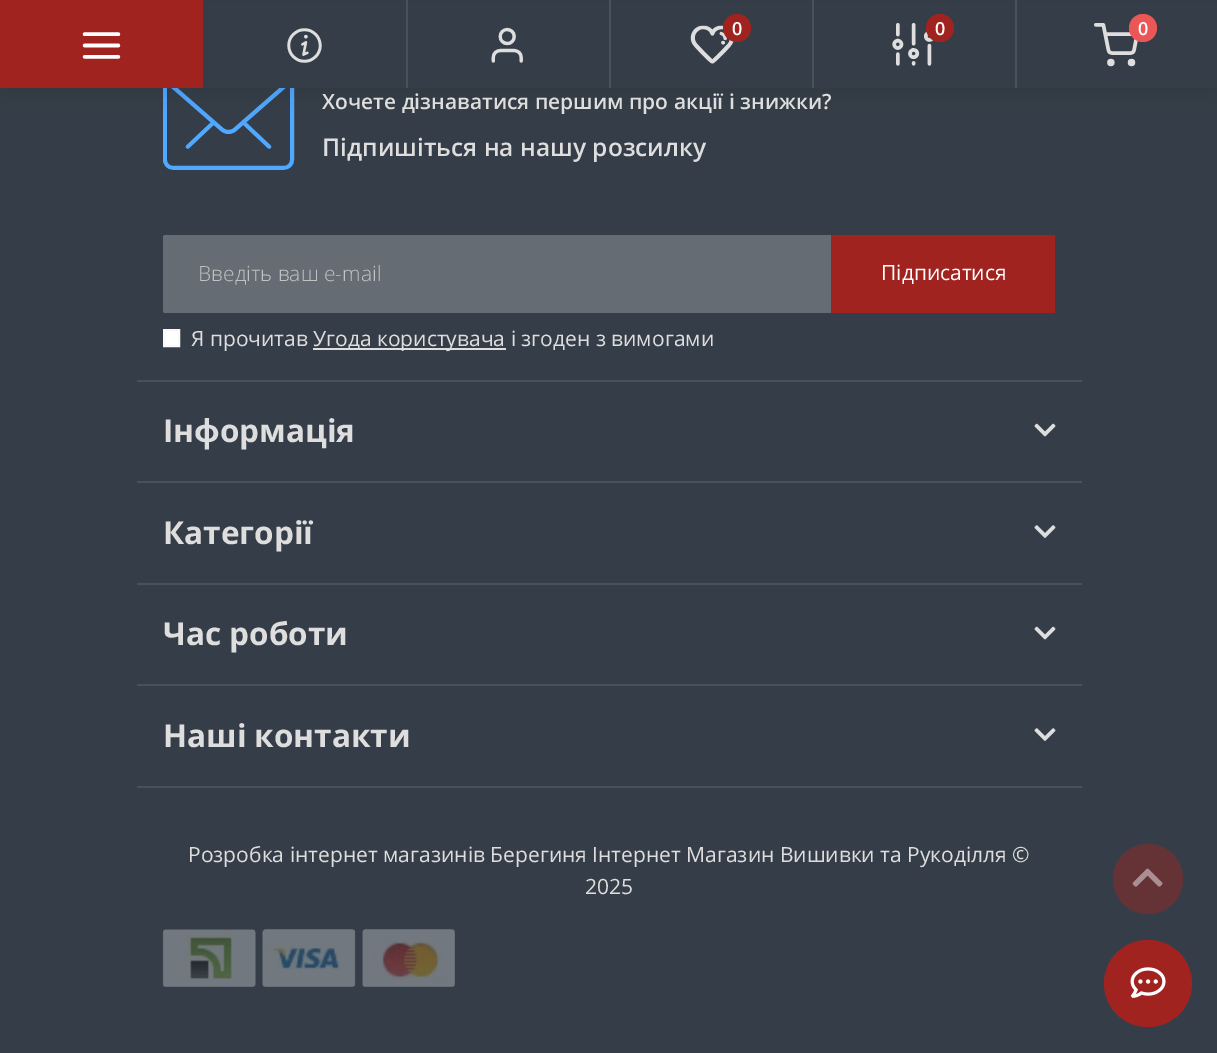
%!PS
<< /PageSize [1217 1053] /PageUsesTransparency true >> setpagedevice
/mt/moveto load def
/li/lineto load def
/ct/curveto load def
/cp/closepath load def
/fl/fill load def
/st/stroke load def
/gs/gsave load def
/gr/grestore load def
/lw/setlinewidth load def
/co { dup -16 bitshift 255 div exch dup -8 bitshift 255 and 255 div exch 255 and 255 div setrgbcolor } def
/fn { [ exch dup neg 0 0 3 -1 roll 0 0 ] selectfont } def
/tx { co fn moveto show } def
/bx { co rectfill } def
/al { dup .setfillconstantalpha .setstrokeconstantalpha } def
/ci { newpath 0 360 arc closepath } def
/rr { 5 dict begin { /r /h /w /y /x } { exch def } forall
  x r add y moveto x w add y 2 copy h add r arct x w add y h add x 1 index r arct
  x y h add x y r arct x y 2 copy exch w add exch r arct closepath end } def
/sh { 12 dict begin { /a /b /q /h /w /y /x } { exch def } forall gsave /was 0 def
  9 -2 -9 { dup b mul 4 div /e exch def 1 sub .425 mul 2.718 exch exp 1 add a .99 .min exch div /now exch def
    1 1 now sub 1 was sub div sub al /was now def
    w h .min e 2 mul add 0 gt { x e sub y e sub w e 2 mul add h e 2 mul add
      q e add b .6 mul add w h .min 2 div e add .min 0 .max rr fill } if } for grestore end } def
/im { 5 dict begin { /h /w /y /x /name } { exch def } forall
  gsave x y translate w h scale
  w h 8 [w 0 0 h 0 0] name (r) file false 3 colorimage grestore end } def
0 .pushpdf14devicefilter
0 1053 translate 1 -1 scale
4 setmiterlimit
0 0 1217 1053 16#353E48 bx
(media/7.raw) 163 88 132 82 im
16#000000 co
0 7 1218 88 0 13 .1 sh
203 2 1014 86 16#353E48 bx
0 0 203 88 16#A0231F bx
(media/1.raw) 82 32 39 27 im
(media/2.raw) 287 28 35 35 im
406 0 2 88 16#49515A bx
(media/3.raw) 491 27 32 36 im
609 0 2 88 16#49515A bx
(media/4.raw) 690 25 44 39 im
16#A0231F co
737 28 14 ci fl
812 0 2 88 16#49515A bx
(media/5.raw) 892 23 42 43 im
16#A0231F co
940 28 14 ci fl
1015 0 2 88 16#49515A bx
(media/6.raw) 1094 23 44 44 im
16#EB5757 co
1143 28 14 ci fl
16#656C73 co
165 235 mt 831 235 li 831 313 li 165 313 li 164 313 163 312 163 311 ct 163 237 li 163 236 164 235 165 235 ct cp fl
831 235 224 78 16#A0231F bx
16#FFFFFF co
164 330 mt 179 330 li 179 346 li 164 346 li cp gs fl gr
16#F9F9F9 co
2 lw
st
313 348 193 2 16#DEDEDE bx
137 380 945 2 16#49515A bx
137 481 945 2 16#49515A bx
(media/8.raw) 1034 423 22 14 im
137 583 945 2 16#49515A bx
(media/9.raw) 1034 525 22 13 im
137 684 945 2 16#49515A bx
(media/8.raw) 1034 626 22 14 im
137 786 945 2 16#49515A bx
(media/9.raw) 1034 728 22 13 im
(media/10.raw) 162 929 94 58 im
(media/11.raw) 262 929 94 58 im
(media/12.raw) 362 929 93 58 im
16#653236 co
1148 879 35 ci fl
(media/13.raw) 1132 868 31 19 im
16#A0231F co
1104 940 88 87 43.5 rr fl
(media/14.raw) 1130 967 36 31 im
(0) 732 35 /OpenSans-SemiBold 18 16#FFFFFF tx
(0) 935 35 /OpenSans-SemiBold 18 16#FFFFFF tx
(0) 1138 35 /OpenSans-SemiBold 18 16#FFFFFF tx
(Хочете дізнаватися першим про акції і знижки?) 322 109 /OpenSans-SemiBold 21 16#DEDEDE tx
(Підпишіться на нашу розсилку) 322 156 /OpenSans-SemiBold 24.5 16#DEDEDE tx
(Введіть ваш e-mail) 198 281 /OpenSans-Light 21 16#C2C2C2 tx
(Підписатися) 881 280 /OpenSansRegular-Regular 21 16#FFFFFF tx
(Я прочитав) 191 346 /OpenSansRegular-Regular 21 16#DEDEDE tx
(Угода користувача і згоден з вимогами) 313 346 /OpenSansRegular-Regular 21 16#DEDEDE tx
(Інформація) 163 442 /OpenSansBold-Bold 31.5 16#DEDEDE tx
(Категорії) 163 544 /OpenSansBold-Bold 31.5 16#DEDEDE tx
(Час роботи) 163 645 /OpenSansBold-Bold 31.5 16#DEDEDE tx
(Наші контакти) 163 747 /OpenSansBold-Bold 31.5 16#DEDEDE tx
(Розробка інтернет магазинів Берегиня Інтернет Магазин Вишивки та Рукоділля ©) 188 862 /OpenSansRegular-Regular 21 16#DEDEDE tx
(2025) 585 894 /OpenSansRegular-Regular 21 16#DEDEDE tx
.poppdf14devicefilter showpage
